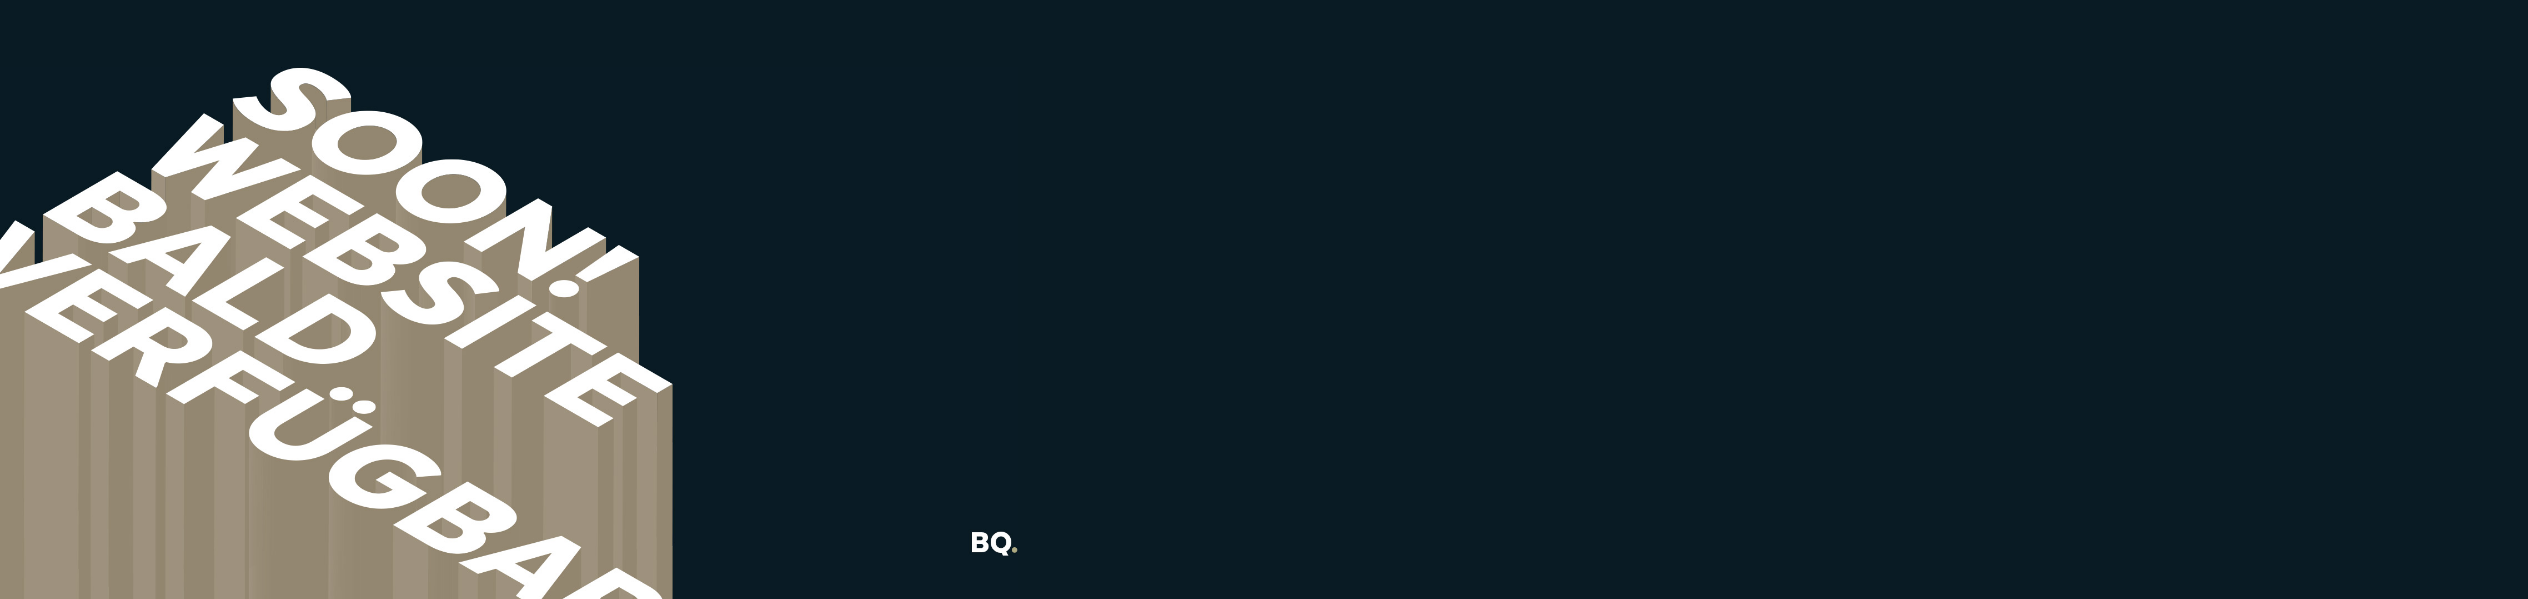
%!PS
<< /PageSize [2528 599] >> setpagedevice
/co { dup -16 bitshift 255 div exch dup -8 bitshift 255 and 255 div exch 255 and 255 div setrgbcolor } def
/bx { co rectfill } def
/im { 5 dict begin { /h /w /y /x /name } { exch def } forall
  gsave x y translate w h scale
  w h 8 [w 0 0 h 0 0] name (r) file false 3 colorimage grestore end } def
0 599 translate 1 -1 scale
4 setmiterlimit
0 0 2528 599 16#091B24 bx
(media/1.raw) 0 67 1018 532 im
showpage
